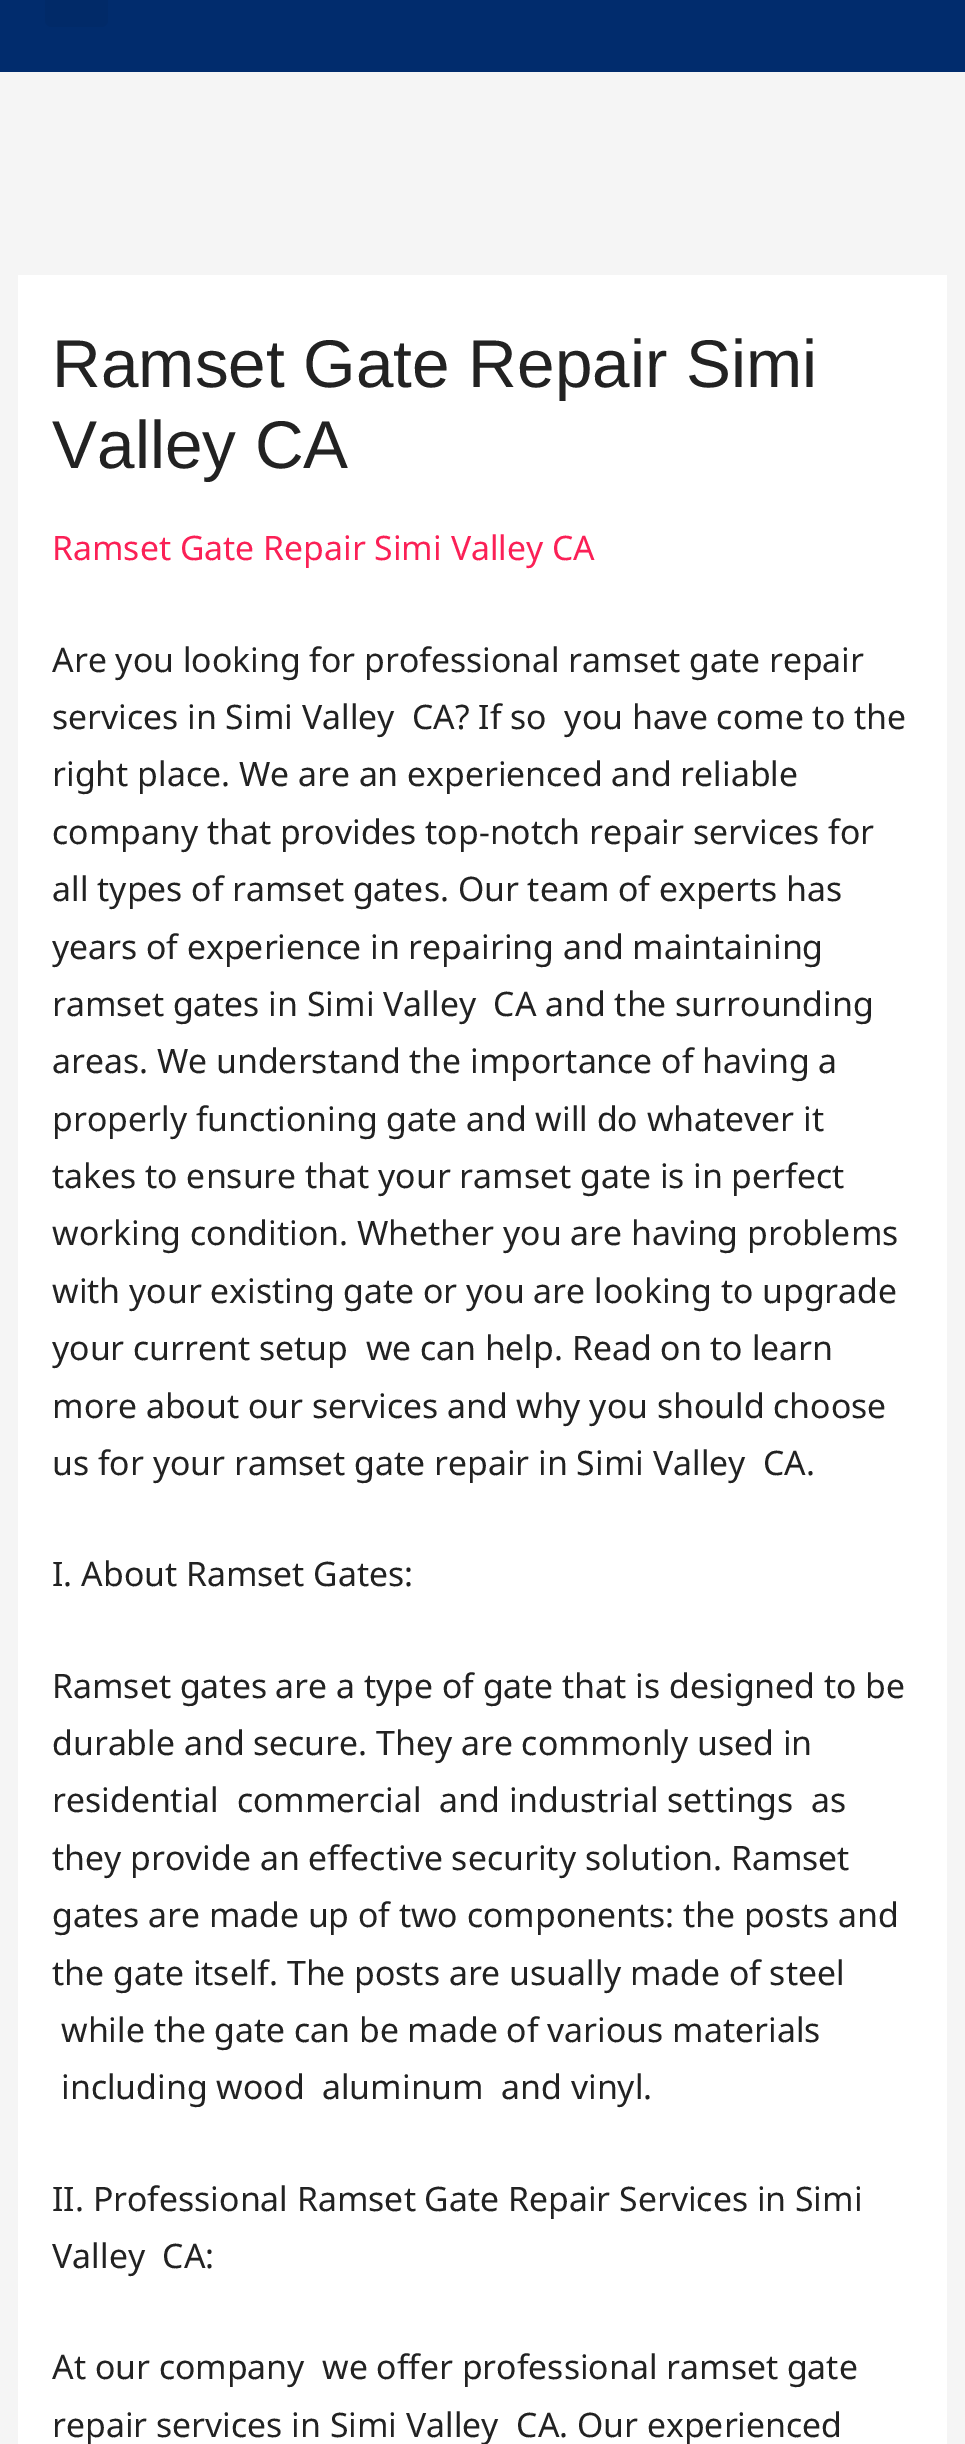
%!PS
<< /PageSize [965 2444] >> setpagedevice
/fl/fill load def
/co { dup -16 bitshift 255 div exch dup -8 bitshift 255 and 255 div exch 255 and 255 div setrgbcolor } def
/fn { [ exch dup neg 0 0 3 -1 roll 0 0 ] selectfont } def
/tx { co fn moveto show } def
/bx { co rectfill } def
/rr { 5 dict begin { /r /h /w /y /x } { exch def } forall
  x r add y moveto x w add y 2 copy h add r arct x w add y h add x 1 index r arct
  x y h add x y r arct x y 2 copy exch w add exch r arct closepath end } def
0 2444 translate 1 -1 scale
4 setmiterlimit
0 0 965 2444 16#F5F5F5 bx
0 0 965 72 16#012C6D bx
16#012A68 co
45 -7 63 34 7 rr fl
18 275 929 2169 16#FFFFFF bx
(Ramset Gate Repair Simi) 52 387 /LiberationSans-Regular 67.5 16#222222 tx
(Valley CA) 52 468 /LiberationSans-Regular 67.5 16#222222 tx
(Ramset Gate Repair Simi Valley CA) 52 560 /NotoSans-Regular 33.75 16#FB2056 tx
(Are you looking for professional ramset gate repair) 52 672 /NotoSans-Regular 33.75 16#222222 tx
(services in Simi Valley  CA? If so  you have come to the) 52 729 /NotoSans-Regular 33.75 16#222222 tx
(right place. We are an experienced and reliable) 52 786 /NotoSans-Regular 33.75 16#222222 tx
(company that provides top-notch repair services for) 52 844 /NotoSans-Regular 33.75 16#222222 tx
(all types of ramset gates. Our team of experts has) 52 901 /NotoSans-Regular 33.75 16#222222 tx
(years of experience in repairing and maintaining) 52 959 /NotoSans-Regular 33.75 16#222222 tx
(ramset gates in Simi Valley  CA and the surrounding) 52 1016 /NotoSans-Regular 33.75 16#222222 tx
(areas. We understand the importance of having a) 52 1073 /NotoSans-Regular 33.75 16#222222 tx
(properly functioning gate and will do whatever it) 52 1131 /NotoSans-Regular 33.75 16#222222 tx
(takes to ensure that your ramset gate is in perfect) 52 1188 /NotoSans-Regular 33.75 16#222222 tx
(working condition. Whether you are having problems) 52 1245 /NotoSans-Regular 33.75 16#222222 tx
(with your existing gate or you are looking to upgrade) 52 1303 /NotoSans-Regular 33.75 16#222222 tx
(your current setup  we can help. Read on to learn) 52 1360 /NotoSans-Regular 33.75 16#222222 tx
(more about our services and why you should choose) 52 1418 /NotoSans-Regular 33.75 16#222222 tx
(us for your ramset gate repair in Simi Valley  CA.) 52 1475 /NotoSans-Regular 33.75 16#222222 tx
(I. About Ramset Gates:) 52 1586 /NotoSans-Regular 33.75 16#222222 tx
(Ramset gates are a type of gate that is designed to be) 52 1698 /NotoSans-Regular 33.75 16#222222 tx
(durable and secure. They are commonly used in) 52 1755 /NotoSans-Regular 33.75 16#222222 tx
(residential  commercial  and industrial settings  as) 52 1812 /NotoSans-Regular 33.75 16#222222 tx
(they provide an effective security solution. Ramset) 52 1870 /NotoSans-Regular 33.75 16#222222 tx
(gates are made up of two components: the posts and) 52 1927 /NotoSans-Regular 33.75 16#222222 tx
(the gate itself. The posts are usually made of steel) 52 1985 /NotoSans-Regular 33.75 16#222222 tx
(while the gate can be made of various materials) 61 2042 /NotoSans-Regular 33.75 16#222222 tx
(including wood  aluminum  and vinyl.) 61 2099 /NotoSans-Regular 33.75 16#222222 tx
(II. Professional Ramset Gate Repair Services in Simi) 52 2211 /NotoSans-Regular 33.75 16#222222 tx
(Valley  CA:) 52 2268 /NotoSans-Regular 33.75 16#222222 tx
(At our company  we offer professional ramset gate) 52 2379 /NotoSans-Regular 33.75 16#222222 tx
(repair services in Simi Valley  CA. Our experienced) 52 2437 /NotoSans-Regular 33.75 16#222222 tx
showpage
